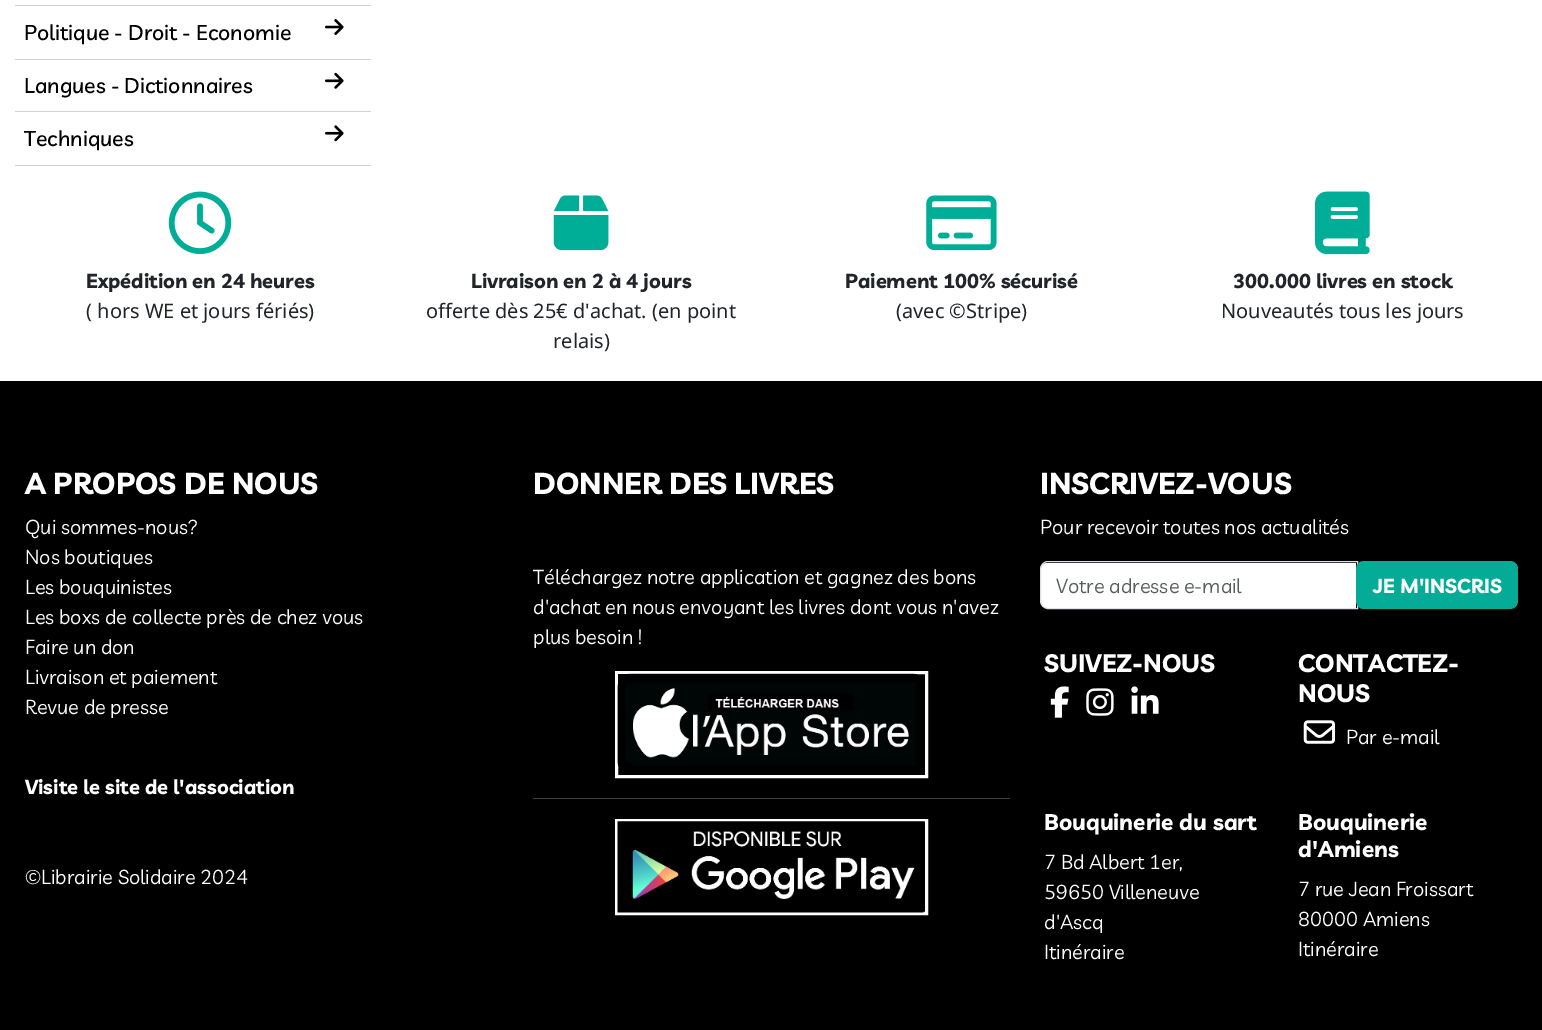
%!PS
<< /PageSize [1542 1030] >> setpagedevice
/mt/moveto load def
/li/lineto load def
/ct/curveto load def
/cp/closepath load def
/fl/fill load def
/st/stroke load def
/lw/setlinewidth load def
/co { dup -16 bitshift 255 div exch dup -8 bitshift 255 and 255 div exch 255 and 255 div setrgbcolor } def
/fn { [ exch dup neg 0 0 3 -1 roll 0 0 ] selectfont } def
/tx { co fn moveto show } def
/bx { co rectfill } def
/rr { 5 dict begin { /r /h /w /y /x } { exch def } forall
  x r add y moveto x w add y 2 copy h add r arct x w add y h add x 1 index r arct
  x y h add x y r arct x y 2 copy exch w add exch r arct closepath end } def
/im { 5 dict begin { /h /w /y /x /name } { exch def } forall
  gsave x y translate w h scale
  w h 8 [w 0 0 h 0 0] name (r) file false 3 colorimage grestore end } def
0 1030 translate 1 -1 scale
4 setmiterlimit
0 0 1542 1030 16#FFFFFF bx
15 5 356 1 16#D3D3D3 bx
15 59 356 1 16#D3D3D3 bx
(media/1.raw) 325 19 19 16 im
15 111 356 1 16#D3D3D3 bx
(media/2.raw) 325 72 19 17 im
15 165 356 1 16#D3D3D3 bx
(media/3.raw) 325 125 19 17 im
(media/4.raw) 168 191 64 64 im
(media/5.raw) 553 195 56 56 im
(media/6.raw) 926 195 71 56 im
(media/7.raw) 1315 191 55 64 im
0 381 1542 649 16#000000 bx
16#FFFFFF co
3 lw
616.5 672.5 310 104 rectstroke
(media/8.raw) 617 673 300 93 im
533 798 477 1 16#404040 bx
16#FFFFFF co
616.5 820.5 310 93 rectstroke
(media/9.raw) 617 821 308 92 im
1047 563 mt 1356 563 li 1356 608 li 1047 608 li 1043.5 608 1041 605.5 1041 602 ct 1041 569 li 1041 565.5 1043.5 563 1047 563 ct cp fl
16#DEE2E6 co
1 lw
1048 561.5 mt 1357.5 561.5 li 1357.5 608.5 li 1048 608.5 li 1044 608.5 1040.5 605 1040.5 601 ct 1040.5 569 li 1040.5 565 1044 561.5 1048 561.5 ct cp st
16#04AB96 co
1356 561 162 48 8 rr fl
(media/10.raw) 1050 686 19 32 im
(media/11.raw) 1086 688 28 28 im
(media/12.raw) 1131 686 28 28 im
(media/13.raw) 1303 720 32 24 im
(Politique - Droit - Economie) 24 40 /Livvic-Medium 21.25 16#000000 tx
(Langues - Dictionnaires) 24 93 /Livvic-Medium 21.25 16#000000 tx
(Techniques) 24 146 /Livvic-Medium 21.25 16#000000 tx
(Expédition en 24 heures) 86 288 /Livvic-Bold 20 16#212529 tx
(\( hors WE et jours fériés\)) 86 318 /NotoSans-Regular 20 16#212529 tx
(Livraison en 2 à 4 jours) 471 288 /Livvic-Bold 20 16#212529 tx
(offerte dès 25€ d'achat. \(en point) 426 318 /NotoSans-Regular 20 16#212529 tx
(relais\)) 553 348 /NotoSans-Regular 20 16#212529 tx
(Paiement 100% sécurisé) 845 288 /Livvic-Bold 20 16#212529 tx
(\(avec ©Stripe\)) 896 318 /NotoSans-Regular 20 16#212529 tx
(300.000 livres en stock) 1233 288 /Livvic-Bold 20 16#212529 tx
(Nouveautés tous les jours) 1221 318 /NotoSans-Regular 20 16#212529 tx
(A PROPOS DE NOUS) 25 494 /Livvic-Bold 30 16#FFFFFF tx
(Qui sommes-nous?) 25 534 /Livvic-Regular 20 16#FFFFFF tx
(Nos boutiques) 25 564 /Livvic-Regular 20 16#FFFFFF tx
(Les bouquinistes) 25 594 /Livvic-Regular 20 16#FFFFFF tx
(Les boxs de collecte près de chez vous) 25 624 /Livvic-Regular 20 16#FFFFFF tx
(Faire un don) 25 654 /Livvic-Regular 20 16#FFFFFF tx
(Livraison et paiement) 25 684 /Livvic-Regular 20 16#FFFFFF tx
(Revue de presse) 25 714 /Livvic-Regular 20 16#FFFFFF tx
(Visite le site de l'association) 25 794 /Livvic-Bold 20 16#FFFFFF tx
(©Librairie Solidaire 2024) 25 884 /Livvic-Regular 20 16#FFFFFF tx
(DONNER DES LIVRES) 533 494 /Livvic-Bold 30 16#FFFFFF tx
(Téléchargez notre application et gagnez des bons) 533 584 /Livvic-Regular 20 16#FFFFFF tx
(d'achat en nous envoyant les livres dont vous n'avez) 533 614 /Livvic-Regular 20 16#FFFFFF tx
(plus besoin !) 533 644 /Livvic-Regular 20 16#FFFFFF tx
(INSCRIVEZ-VOUS) 1040 494 /Livvic-Bold 30 16#FFFFFF tx
(Pour recevoir toutes nos actualités) 1040 534 /Livvic-Regular 20 16#FFFFFF tx
(Votre adresse e-mail) 1056 593 /Livvic-Regular 20 16#595C5F tx
(JE M'INSCRIS) 1373 593 /Livvic-Bold 20 16#FFFFFF tx
(SUIVEZ-NOUS) 1044 672 /Livvic-Bold 25 16#FFFFFF tx
(CONTACTEZ-) 1298 672 /Livvic-Bold 25 16#FFFFFF tx
(NOUS) 1298 702 /Livvic-Bold 25 16#FFFFFF tx
(Par e-mail) 1346 744 /Livvic-Regular 20 16#FFFFFF tx
(Bouquinerie du sart) 1044 830 /Livvic-Bold 22.5 16#FFFFFF tx
(7 Bd Albert 1er,) 1044 869 /Livvic-Regular 20 16#FFFFFF tx
(59650 Villeneuve) 1044 899 /Livvic-Regular 20 16#FFFFFF tx
(d'Ascq) 1044 929 /Livvic-Regular 20 16#FFFFFF tx
(Itinéraire) 1044 959 /Livvic-Regular 20 16#FFFFFF tx
(Bouquinerie) 1298 830 /Livvic-Bold 22.5 16#FFFFFF tx
(d'Amiens) 1298 857 /Livvic-Bold 22.5 16#FFFFFF tx
(7 rue Jean Froissart) 1298 896 /Livvic-Regular 20 16#FFFFFF tx
(80000 Amiens) 1298 926 /Livvic-Regular 20 16#FFFFFF tx
(Itinéraire) 1298 956 /Livvic-Regular 20 16#FFFFFF tx
showpage
